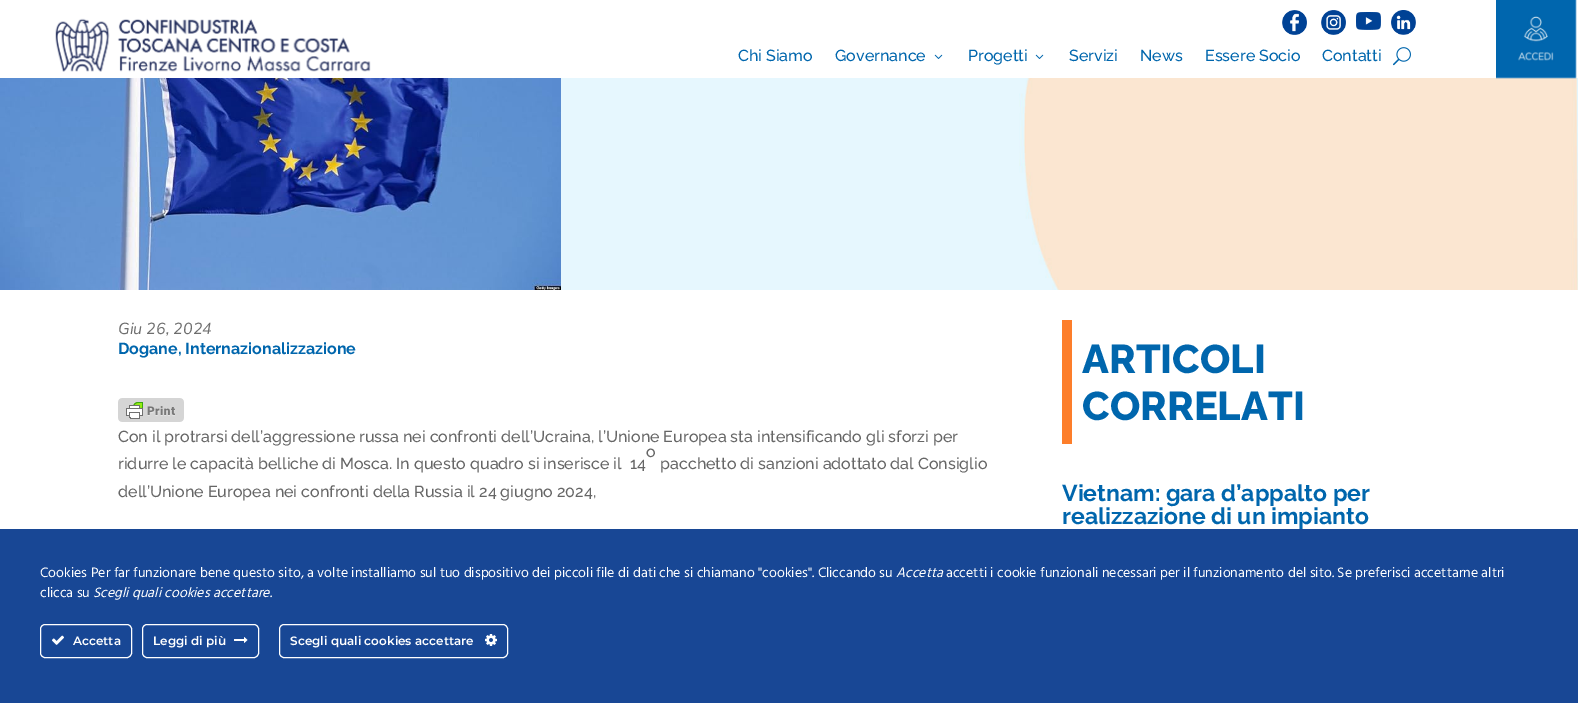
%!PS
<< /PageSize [1578 703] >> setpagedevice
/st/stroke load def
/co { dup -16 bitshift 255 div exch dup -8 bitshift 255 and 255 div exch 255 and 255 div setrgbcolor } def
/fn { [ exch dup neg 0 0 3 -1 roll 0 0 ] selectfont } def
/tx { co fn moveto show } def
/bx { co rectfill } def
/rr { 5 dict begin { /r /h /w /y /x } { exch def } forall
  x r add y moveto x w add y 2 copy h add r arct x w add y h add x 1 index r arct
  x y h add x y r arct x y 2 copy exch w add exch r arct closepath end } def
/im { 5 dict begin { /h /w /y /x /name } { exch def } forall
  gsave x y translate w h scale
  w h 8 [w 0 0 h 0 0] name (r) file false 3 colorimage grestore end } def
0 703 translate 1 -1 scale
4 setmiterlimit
0 0 1578 703 16#FFFFFF bx
(media/1.raw) 1282 10 25 25 im
(media/2.raw) 1321 10 25 25 im
(media/3.raw) 1356 12 25 18 im
(media/4.raw) 1391 10 25 25 im
(media/5.raw) 55 18 316 54 im
(media/6.raw) 934 54 9 5 im
(media/6.raw) 1035 54 9 5 im
(media/7.raw) 1393 47 18 19 im
(media/9.raw) 561 78 1017 212 im
(media/8.raw) 1496 0 81 79 im
(media/10.raw) 0 78 561 212 im
(media/11.raw) 118 398 66 24 im
1062 320 10 124 16#FD7E2A bx
0 529 1578 174 16#184795 bx
16#FFFFFF co
40.5 624.5 91 33 4.5 rr st
(media/12.raw) 52 635 12 10 im
142.5 624.5 116 33 4.5 rr st
(media/13.raw) 234 637 14 6 im
279.5 624.5 228 33 4.5 rr st
(media/14.raw) 485 634 12 12 im
(Chi Siamo) 738 61 /Raleway-Thin 16 16#0066AD tx
(Governance) 835 61 /Raleway-Thin 16 16#0066AD tx
(Progetti) 968 61 /Raleway-Thin 16 16#0066AD tx
(Servizi) 1069 61 /Raleway-Thin 16 16#0066AD tx
(News) 1140 61 /Raleway-Thin 16 16#0066AD tx
(Essere Socio) 1205 61 /Raleway-Thin 16 16#0066AD tx
(Contatti) 1322 61 /Raleway-Thin 16 16#0066AD tx
(Giu 26, 2024) 118 334 /NunitoSans-ExtraLightItalic 16 16#6E6E6E tx
(Dogane, Internazionalizzazione) 118 354 /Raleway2-Thin 16 16#0066AD tx
(Con il protrarsi dell’aggressione russa nei confronti dell’Ucraina, l’Unione Europea sta intensificando gli sforzi per) 118 442 /Raleway-Thin 16 16#666666 tx
(o) 646 457 /Raleway-Thin 16 16#666666 tx
(ridurre le capacità belliche di Mosca. In questo quadro si inserisce il  14) 118 469 /Raleway-Thin 16 16#666666 tx
(pacchetto di sanzioni adottato dal Consiglio) 660 469 /Raleway-Thin 16 16#666666 tx
(dell’Unione Europea nei confronti della Russia il 24 giugno 2024,) 118 497 /Raleway-Thin 16 16#666666 tx
(ARTICOLI) 1082 373 /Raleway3-Thin 40 16#0066AD tx
(CORRELATI) 1082 420 /Raleway3-Thin 40 16#0066AD tx
(Vietnam: gara d’appalto per) 1062 501 /Raleway2-Thin 23 16#0066AD tx
(realizzazione di un impianto) 1062 524 /Raleway2-Thin 23 16#0066AD tx
(Cookies Per far funzionare bene questo sito, a volte installiamo sul tuo dispositivo dei piccoli file di dati che si chiamano "cookies". Cliccando su) 40 577 /Hind-Regular 14 16#FFFFFF tx
(Accetta) 896 577 /Hind-Italic 14 16#FFFFFF tx
(accetti i cookie funzionali necessari per il funzionamento del sito. Se preferisci accettarne altri) 946 577 /Hind-Regular 14 16#FFFFFF tx
(clicca su) 40 597 /Hind-Regular 14 16#FFFFFF tx
(Scegli quali cookies accettare) 93 597 /Hind-Italic 14 16#FFFFFF tx
(.) 270 597 /Hind-Regular 14 16#FFFFFF tx
(Accetta) 73 645 /Montserrat-SemiBold 12 16#FFFFFF tx
(Leggi di più) 153 645 /Montserrat-SemiBold 12 16#FFFFFF tx
(Scegli quali cookies accettare) 290 645 /Montserrat-SemiBold 12 16#FFFFFF tx
showpage
